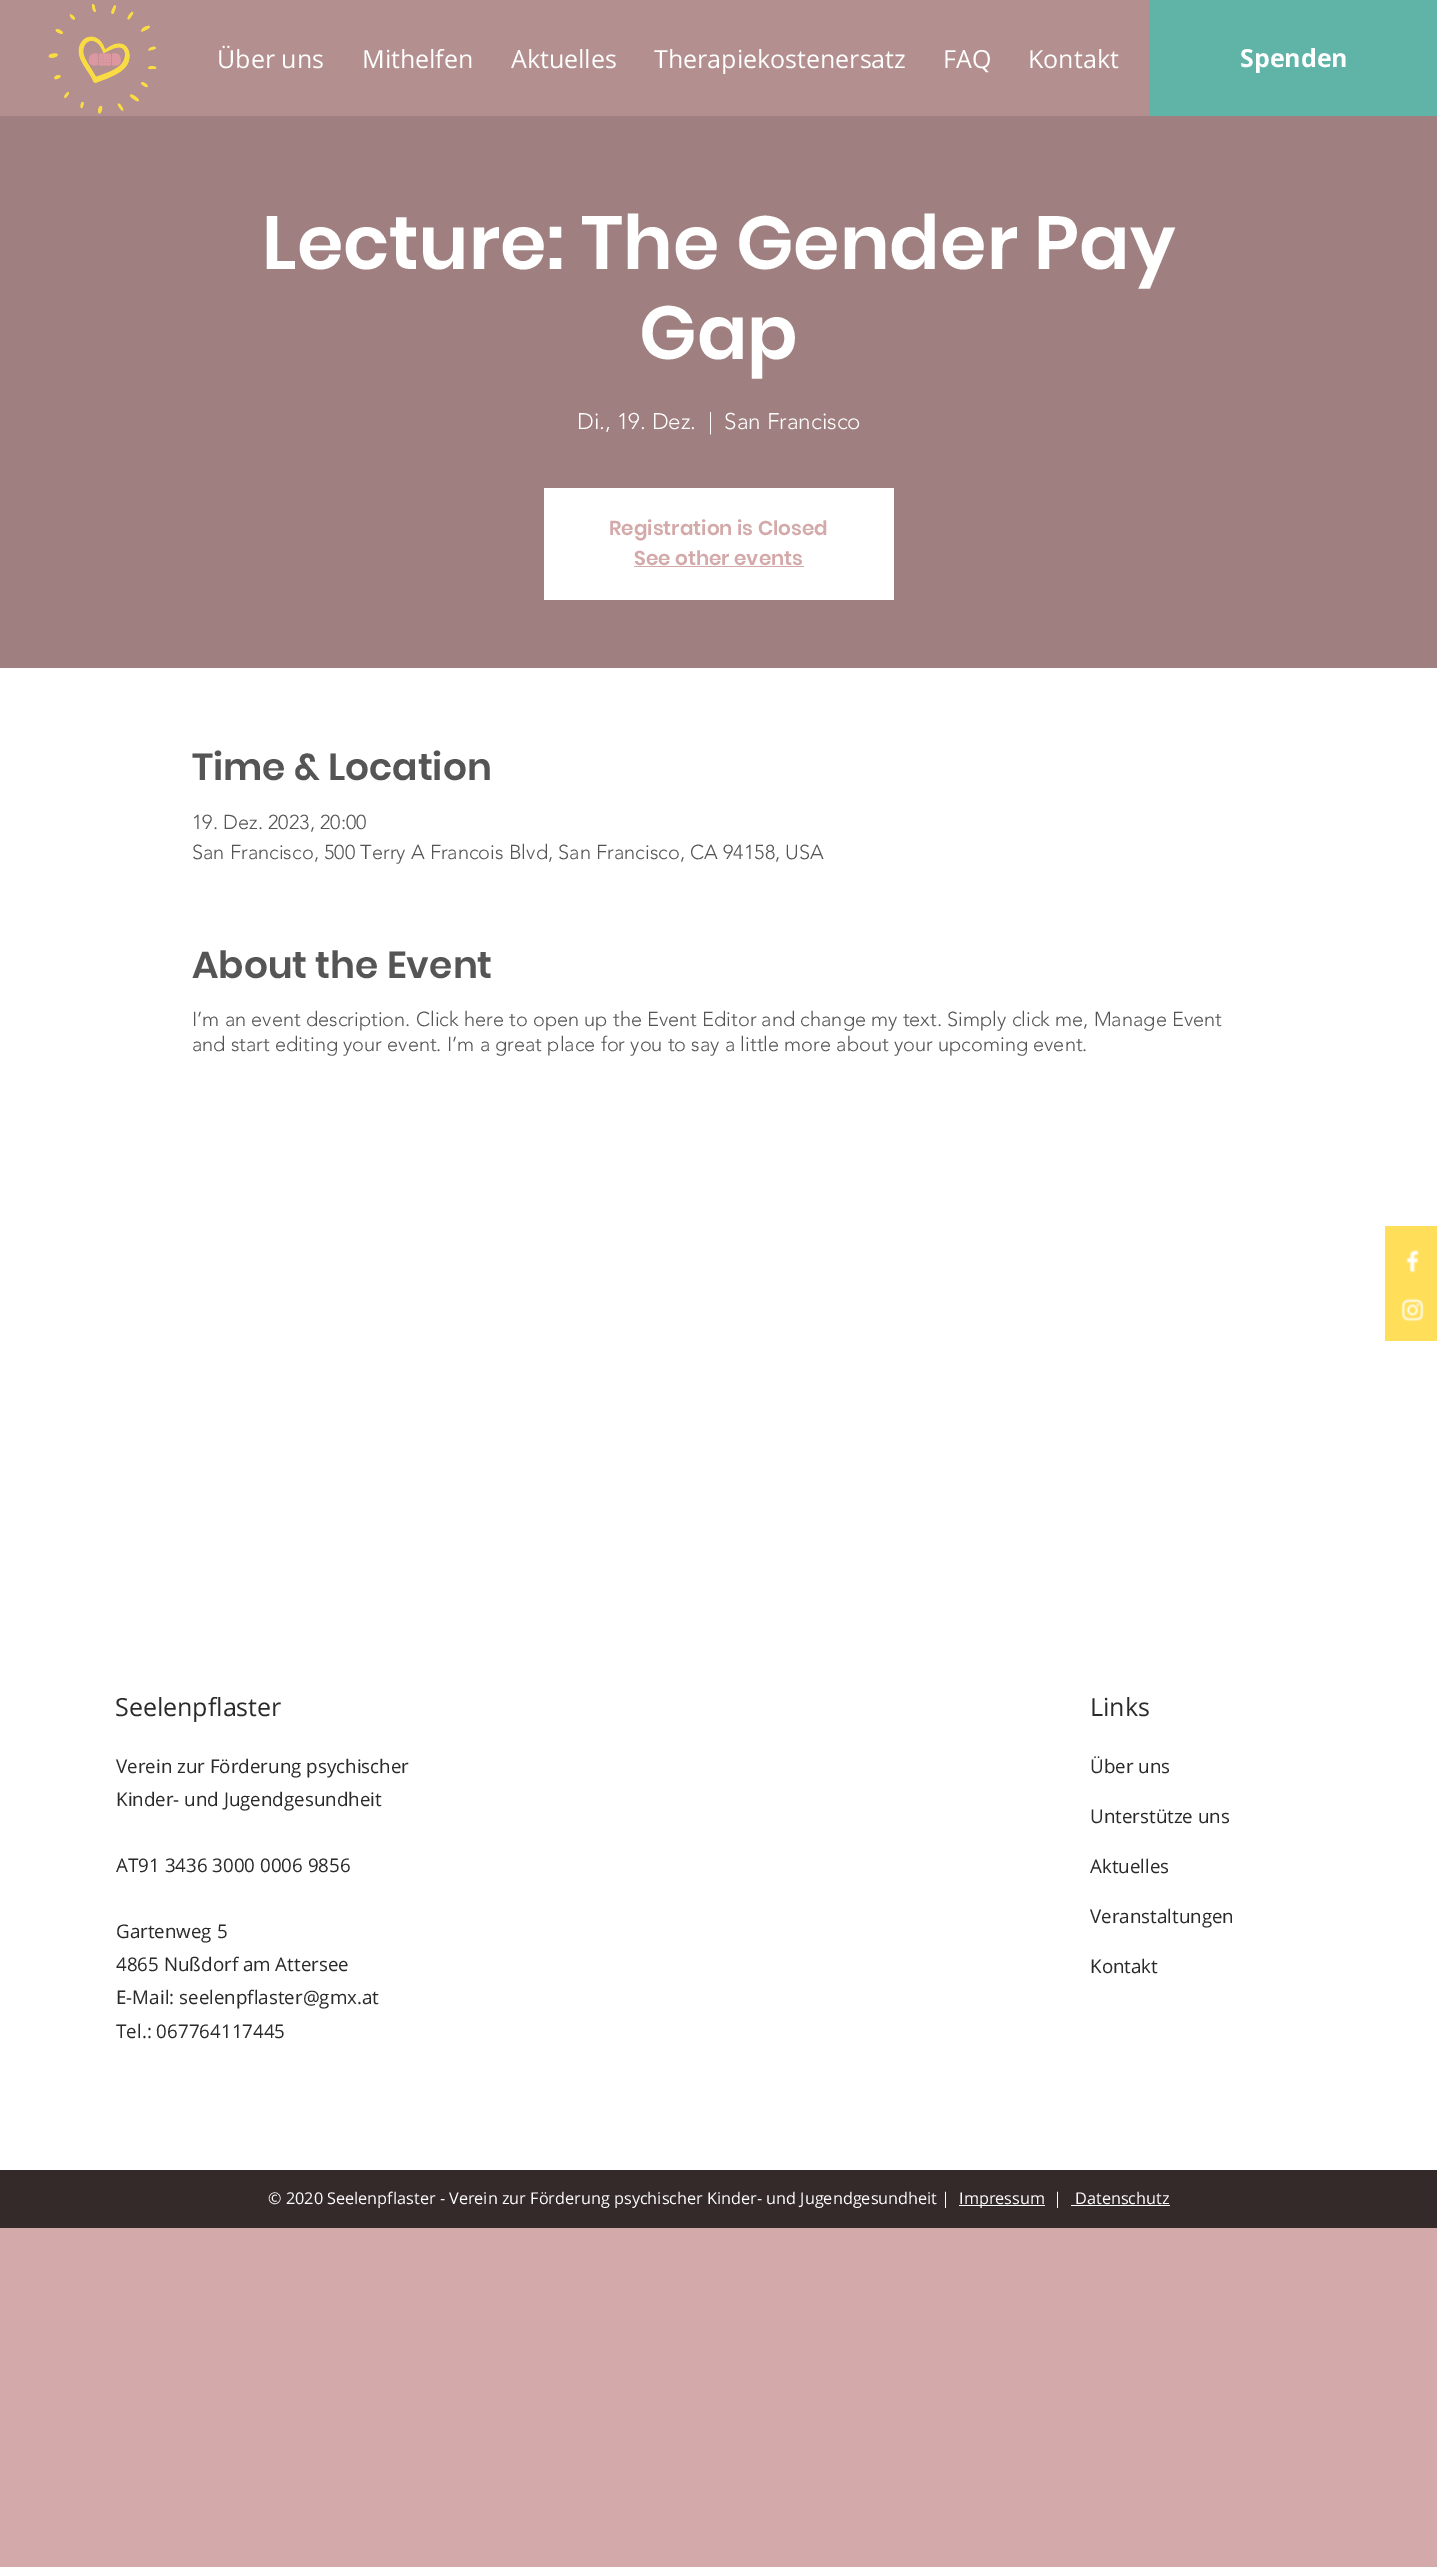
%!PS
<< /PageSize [1437 2567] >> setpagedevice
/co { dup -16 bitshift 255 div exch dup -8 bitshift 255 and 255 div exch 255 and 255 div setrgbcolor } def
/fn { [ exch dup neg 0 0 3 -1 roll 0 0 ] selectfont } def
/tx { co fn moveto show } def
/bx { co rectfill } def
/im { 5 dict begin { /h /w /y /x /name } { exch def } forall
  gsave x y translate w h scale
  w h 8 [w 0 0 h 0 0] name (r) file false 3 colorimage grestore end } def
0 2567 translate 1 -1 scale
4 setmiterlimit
0 0 1437 2567 16#D4A9A9 bx
0 0 1150 116 16#B38F8F bx
(media/1.raw) 48 4 109 110 im
(media/2.raw) 48 4 109 110 im
1150 0 287 116 16#60B3A7 bx
0 116 1437 552 16#9F7F7F bx
544 488 350 112 16#FFFFFF bx
634 566 170 1 16#D4A9A9 bx
0 668 1437 1502 16#FFFFFF bx
1385 1226 52 115 16#FFDE59 bx
(media/3.raw) 1405 1249 15 24 im
(media/4.raw) 1401 1298 23 24 im
0 2170 1437 58 16#352A2A bx
959 2205 86 1 16#FFFFFF bx
1071 2205 99 1 16#FFFFFF bx
(Über uns) 217 68 /OpenSans-Regular 25 16#FFFFFF tx
(Mithelfen) 362 68 /OpenSans-Regular 25 16#FFFFFF tx
(Aktuelles) 511 68 /OpenSans-Regular 25 16#FFFFFF tx
(Therapiekostenersatz) 654 68 /OpenSans-Regular 25 16#FFFFFF tx
(FAQ) 943 68 /OpenSans-Regular 25 16#FFFFFF tx
(Kontakt) 1028 68 /OpenSans-Regular 25 16#FFFFFF tx
(Spenden) 1240 67 /OpenSans-Bold 25 16#FFFFFF tx
(Lecture: The Gender Pay) 262 269 /Poppins-SemiBold 75 16#FFFFFF tx
(Gap) 639 359 /Poppins-SemiBold 75 16#FFFFFF tx
(Di., 19. Dez.) 577 429 /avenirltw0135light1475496-Light 22.5 16#FFFFFF tx
(|) 708 429 /avenirltw0135light1475496-Light 22.5 16#FFFFFF tx
(San Francisco) 724 429 /avenirltw0135light1475496-Light 22.5 16#FFFFFF tx
(Registration is Closed) 609 535 /Poppins-SemiBold 20 16#D4A9A9 tx
(See other events) 634 565 /Poppins-SemiBold 20 16#D4A9A9 tx
(Time & Location) 192 780 /Poppins-SemiBold 37.5 16#555555 tx
(19. Dez. 2023, 20:00) 192 829 /avenirltw0135light1475496-Light 20 16#555555 tx
(San Francisco, 500 Terry A Francois Blvd, San Francisco, CA 94158, USA) 192 859 /avenirltw0135light1475496-Light 20 16#555555 tx
(About the Event) 192 978 /Poppins-SemiBold 37.5 16#555555 tx
(I’m an event description. Click here to open up the Event Editor and change my text. Simply click me, Manage Event) 192 1026 /avenirltw0135light1475496-Light 20 16#555555 tx
(and start editing your event. I’m a great place for you to say a little more about your upcoming event.) 192 1051 /avenirltw0135light1475496-Light 20 16#555555 tx
(Seelenpflaster) 115 1716 /OpenSans-Regular 25 16#2A2A2A tx
(Verein zur Förderung psychischer) 116 1773 /OpenSans-Regular 18.75 16#2A2A2A tx
(Kinder- und Jugendgesundheit) 116 1806 /OpenSans-Regular 18.75 16#2A2A2A tx
(AT91 3436 3000 0006 9856) 116 1872 /OpenSans-Regular 18.75 16#2A2A2A tx
(Gartenweg 5) 116 1938 /OpenSans-Regular 18.75 16#2A2A2A tx
(4865 Nußdorf am Attersee) 116 1971 /OpenSans-Regular 18.75 16#2A2A2A tx
(E-Mail: seelenpflaster@gmx.at) 116 2004 /OpenSans-Regular 18.75 16#2A2A2A tx
(Tel.: 067764117445) 116 2038 /OpenSans-Regular 18.75 16#2A2A2A tx
(Links) 1090 1716 /OpenSans-Regular 25 16#2A2A2A tx
(Über uns) 1090 1773 /OpenSans-Regular 18.75 16#2A2A2A tx
(Unterstütze uns) 1090 1823 /OpenSans-Regular 18.75 16#2A2A2A tx
(Aktuelles) 1090 1873 /OpenSans-Regular 18.75 16#2A2A2A tx
(Veranstaltungen) 1090 1923 /OpenSans-Regular 18.75 16#2A2A2A tx
(Kontakt) 1090 1973 /OpenSans-Regular 18.75 16#2A2A2A tx
(© 2020 Seelenpflaster - Verein zur Förderung psychischer Kinder- und Jugendgesundheit |) 268 2204 /OpenSans-Regular 16.25 16#FFFFFF tx
(Impressum) 959 2204 /OpenSans-Regular 16.25 16#FFFFFF tx
(|) 1053 2204 /OpenSans-Regular 16.25 16#FFFFFF tx
(Datenschutz) 1075 2204 /OpenSans-Regular 16.25 16#FFFFFF tx
showpage
